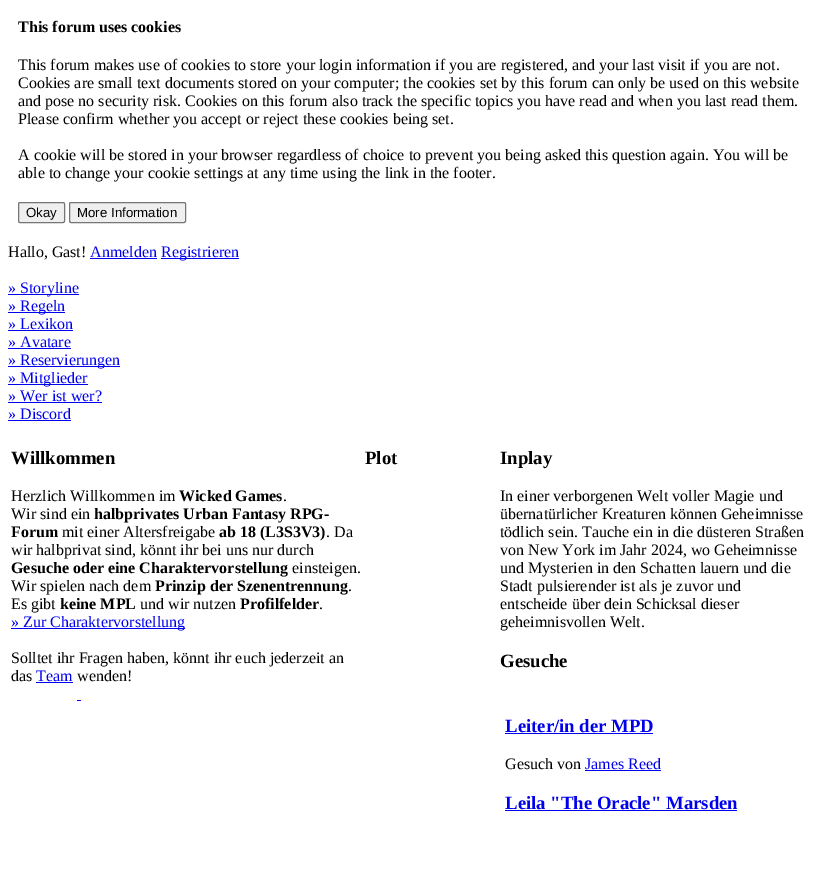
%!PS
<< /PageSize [817 886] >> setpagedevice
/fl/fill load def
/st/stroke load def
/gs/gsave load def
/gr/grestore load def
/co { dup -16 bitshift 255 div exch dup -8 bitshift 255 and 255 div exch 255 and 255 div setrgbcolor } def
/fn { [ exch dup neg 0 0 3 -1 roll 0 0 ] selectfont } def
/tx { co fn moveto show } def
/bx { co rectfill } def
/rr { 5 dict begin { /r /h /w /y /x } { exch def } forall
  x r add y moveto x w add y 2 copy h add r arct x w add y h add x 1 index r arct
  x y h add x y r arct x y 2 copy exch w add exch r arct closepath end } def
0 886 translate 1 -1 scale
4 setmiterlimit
0 0 817 886 16#FFFFFF bx
16#EFEFEF co
18.5 202.5 46 20 1.5 rr gs fl gr
16#767676 co
st
16#EFEFEF co
69.5 202.5 116 20 1.5 rr gs fl gr
16#767676 co
st
90 258 67 1 16#0000EE bx
161 258 78 1 16#0000EE bx
8 294 71 1 16#0000EE bx
8 312 57 1 16#0000EE bx
8 330 65 1 16#0000EE bx
8 348 63 1 16#0000EE bx
8 366 112 1 16#0000EE bx
8 384 80 1 16#0000EE bx
8 402 94 1 16#0000EE bx
8 420 63 1 16#0000EE bx
11 628 174 1 16#0000EE bx
36 682 37 1 16#0000EE bx
77 700 4 1 16#0000EE bx
505 733 148 1 16#0000EE bx
585 770 76 1 16#0000EE bx
505 810 232 1 16#0000EE bx
(This forum uses cookies) 18 32 /LiberationSerif-Bold 16 16#000000 tx
(This forum makes use of cookies to store your login information if you are registered, and your last visit if you are not.) 18 70 /LiberationSerif-Regular 16 16#000000 tx
(Cookies are small text documents stored on your computer; the cookies set by this forum can only be used on this website) 18 88 /LiberationSerif-Regular 16 16#000000 tx
(and pose no security risk. Cookies on this forum also track the specific topics you have read and when you last read them.) 18 106 /LiberationSerif-Regular 16 16#000000 tx
(Please confirm whether you accept or reject these cookies being set.) 18 124 /LiberationSerif-Regular 16 16#000000 tx
(A cookie will be stored in your browser regardless of choice to prevent you being asked this question again. You will be) 18 160 /LiberationSerif-Regular 16 16#000000 tx
(able to change your cookie settings at any time using the link in the footer.) 18 178 /LiberationSerif-Regular 16 16#000000 tx
(Okay) 26 217 /LiberationSans-Regular 13.25 16#000000 tx
(More Information) 77 217 /LiberationSans-Regular 13.25 16#000000 tx
(Hallo, Gast!) 8 257 /LiberationSerif-Regular 16 16#000000 tx
(Anmelden) 90 257 /LiberationSerif-Regular 16 16#0000EE tx
(Registrieren) 161 257 /LiberationSerif-Regular 16 16#0000EE tx
(» Storyline) 8 293 /LiberationSerif-Regular 16 16#0000EE tx
(» Regeln) 8 311 /LiberationSerif-Regular 16 16#0000EE tx
(» Lexikon) 8 329 /LiberationSerif-Regular 16 16#0000EE tx
(» Avatare) 8 347 /LiberationSerif-Regular 16 16#0000EE tx
(» Reservierungen) 8 365 /LiberationSerif-Regular 16 16#0000EE tx
(» Mitglieder) 8 383 /LiberationSerif-Regular 16 16#0000EE tx
(» Wer ist wer?) 8 401 /LiberationSerif-Regular 16 16#0000EE tx
(» Discord) 8 419 /LiberationSerif-Regular 16 16#0000EE tx
(Willkommen) 11 464 /LiberationSerif-Bold 18.75 16#000000 tx
(Herzlich Willkommen im) 11 501 /LiberationSerif-Regular 16 16#000000 tx
(Wicked Games) 179 501 /LiberationSerif-Bold 16 16#000000 tx
(.) 283 501 /LiberationSerif-Regular 16 16#000000 tx
(Wir sind ein) 11 519 /LiberationSerif-Regular 16 16#000000 tx
(halbprivates Urban Fantasy RPG-) 94 519 /LiberationSerif-Bold 16 16#000000 tx
(Forum) 11 537 /LiberationSerif-Bold 16 16#000000 tx
(mit einer Altersfreigabe) 62 537 /LiberationSerif-Regular 16 16#000000 tx
(ab 18 \(L3S3V3\)) 219 537 /LiberationSerif-Bold 16 16#000000 tx
(. Da) 326 537 /LiberationSerif-Regular 16 16#000000 tx
(wir halbprivat sind, könnt ihr bei uns nur durch) 11 555 /LiberationSerif-Regular 16 16#000000 tx
(Gesuche oder eine Charaktervorstellung) 11 573 /LiberationSerif-Bold 16 16#000000 tx
(einsteigen.) 292 573 /LiberationSerif-Regular 16 16#000000 tx
(Wir spielen nach dem) 11 591 /LiberationSerif-Regular 16 16#000000 tx
(Prinzip der Szenentrennung) 155 591 /LiberationSerif-Bold 16 16#000000 tx
(.) 348 591 /LiberationSerif-Regular 16 16#000000 tx
(Es gibt) 11 609 /LiberationSerif-Regular 16 16#000000 tx
(keine MPL) 60 609 /LiberationSerif-Bold 16 16#000000 tx
(und wir nutzen) 140 609 /LiberationSerif-Regular 16 16#000000 tx
(Profilfelder) 240 609 /LiberationSerif-Bold 16 16#000000 tx
(.) 319 609 /LiberationSerif-Regular 16 16#000000 tx
(» Zur Charaktervorstellung) 11 627 /LiberationSerif-Regular 16 16#0000EE tx
(Solltet ihr Fragen haben, könnt ihr euch jederzeit an) 11 663 /LiberationSerif-Regular 16 16#000000 tx
(das) 11 681 /LiberationSerif-Regular 16 16#000000 tx
(Team) 36 681 /LiberationSerif-Regular 16 16#0000EE tx
(wenden!) 77 681 /LiberationSerif-Regular 16 16#000000 tx
(Plot) 365 464 /LiberationSerif-Bold 18.75 16#000000 tx
(Inplay) 500 464 /LiberationSerif-Bold 18.75 16#000000 tx
(In einer verborgenen Welt voller Magie und) 500 501 /LiberationSerif-Regular 16 16#000000 tx
(übernatürlicher Kreaturen können Geheimnisse) 500 519 /LiberationSerif-Regular 16 16#000000 tx
(tödlich sein. Tauche ein in die düsteren Straßen) 500 537 /LiberationSerif-Regular 16 16#000000 tx
(von New York im Jahr 2024, wo Geheimnisse) 500 555 /LiberationSerif-Regular 16 16#000000 tx
(und Mysterien in den Schatten lauern und die) 500 573 /LiberationSerif-Regular 16 16#000000 tx
(Stadt pulsierender ist als je zuvor und) 500 591 /LiberationSerif-Regular 16 16#000000 tx
(entscheide über dein Schicksal dieser) 500 609 /LiberationSerif-Regular 16 16#000000 tx
(geheimnisvollen Welt.) 500 627 /LiberationSerif-Regular 16 16#000000 tx
(Gesuche) 500 667 /LiberationSerif-Bold 18.75 16#000000 tx
(Leiter/in der MPD) 505 732 /LiberationSerif-Bold 18.75 16#0000EE tx
(Gesuch von) 505 769 /LiberationSerif-Regular 16 16#000000 tx
(James Reed) 585 769 /LiberationSerif-Regular 16 16#0000EE tx
(Leila "The Oracle" Marsden) 505 809 /LiberationSerif-Bold 18.75 16#0000EE tx
showpage
